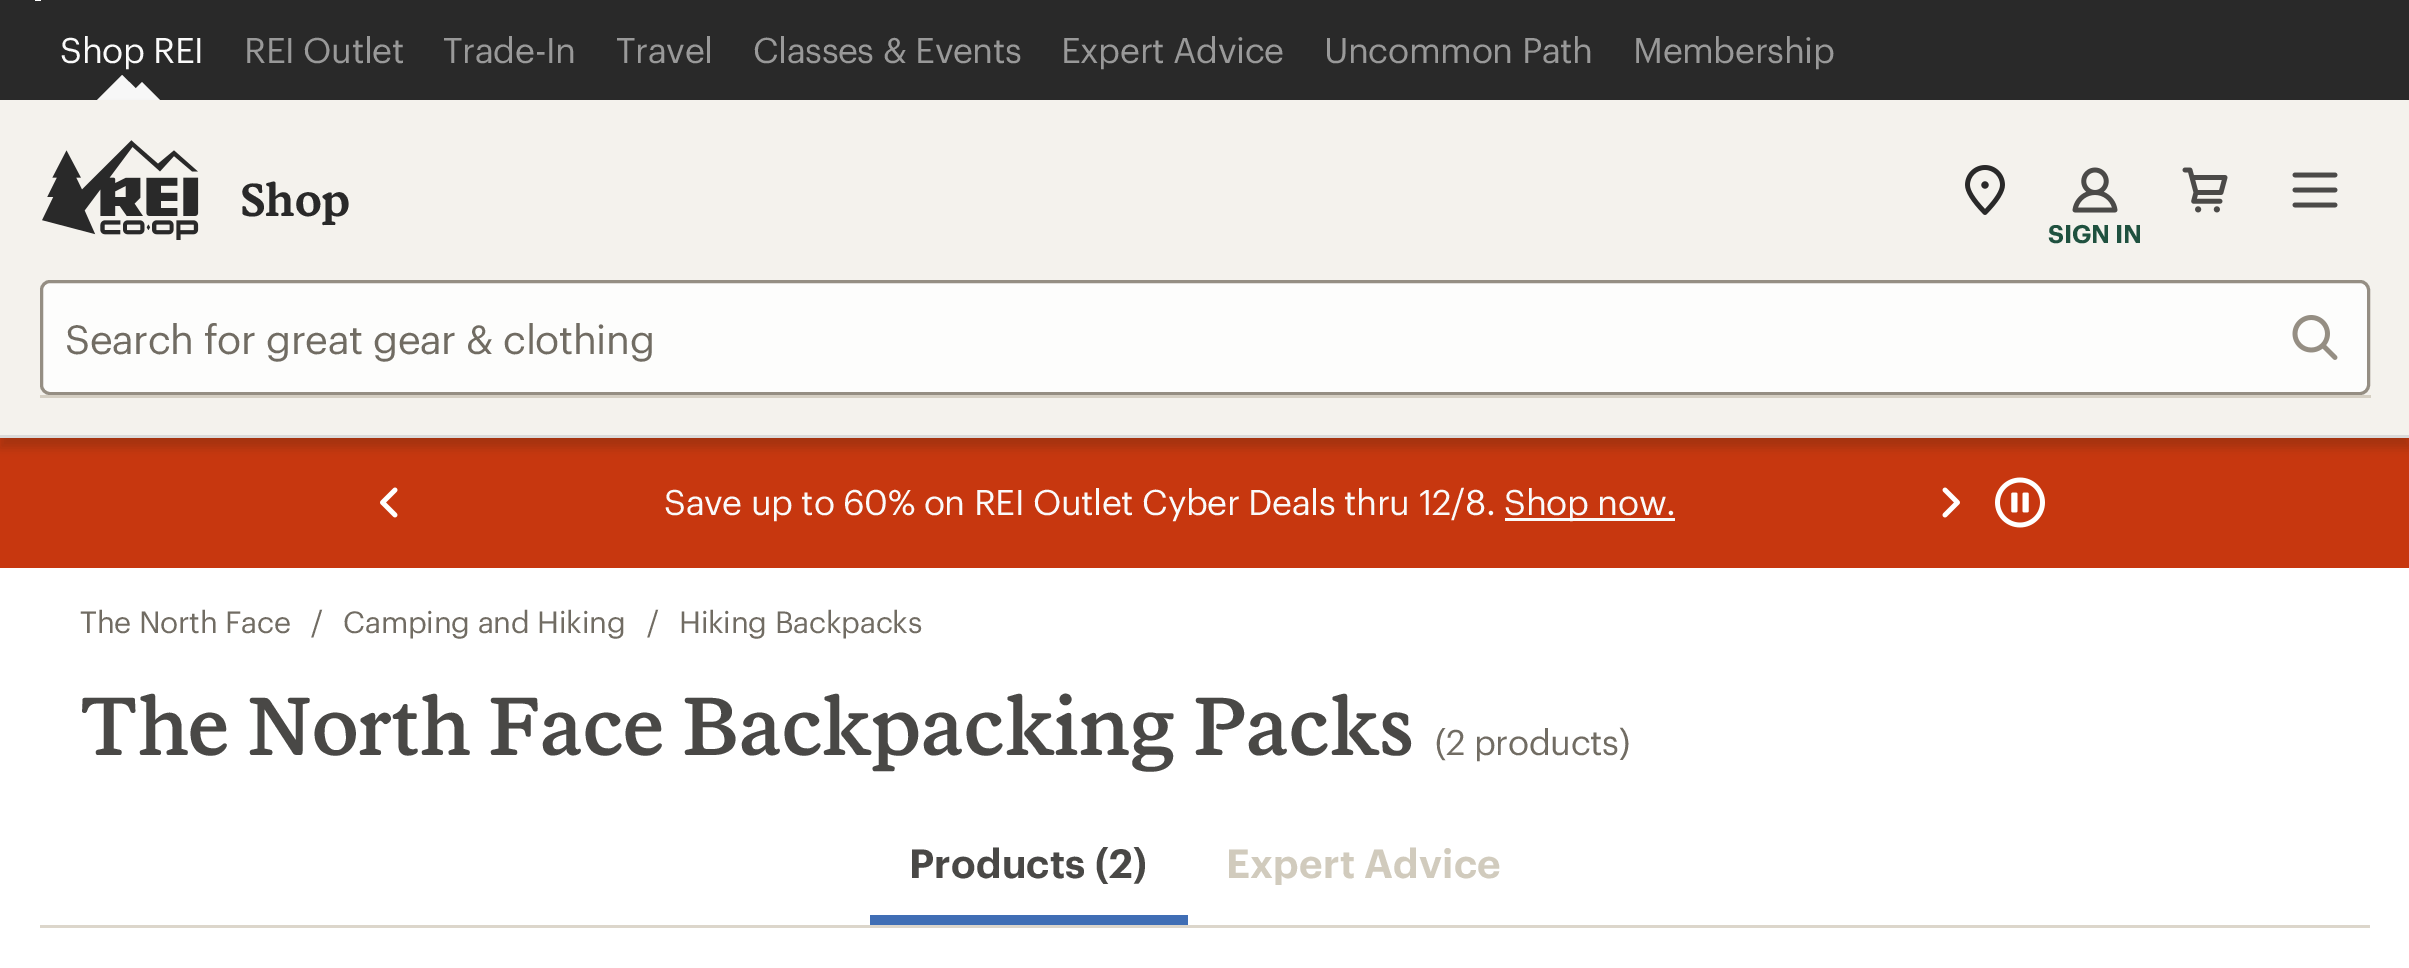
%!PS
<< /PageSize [2409 968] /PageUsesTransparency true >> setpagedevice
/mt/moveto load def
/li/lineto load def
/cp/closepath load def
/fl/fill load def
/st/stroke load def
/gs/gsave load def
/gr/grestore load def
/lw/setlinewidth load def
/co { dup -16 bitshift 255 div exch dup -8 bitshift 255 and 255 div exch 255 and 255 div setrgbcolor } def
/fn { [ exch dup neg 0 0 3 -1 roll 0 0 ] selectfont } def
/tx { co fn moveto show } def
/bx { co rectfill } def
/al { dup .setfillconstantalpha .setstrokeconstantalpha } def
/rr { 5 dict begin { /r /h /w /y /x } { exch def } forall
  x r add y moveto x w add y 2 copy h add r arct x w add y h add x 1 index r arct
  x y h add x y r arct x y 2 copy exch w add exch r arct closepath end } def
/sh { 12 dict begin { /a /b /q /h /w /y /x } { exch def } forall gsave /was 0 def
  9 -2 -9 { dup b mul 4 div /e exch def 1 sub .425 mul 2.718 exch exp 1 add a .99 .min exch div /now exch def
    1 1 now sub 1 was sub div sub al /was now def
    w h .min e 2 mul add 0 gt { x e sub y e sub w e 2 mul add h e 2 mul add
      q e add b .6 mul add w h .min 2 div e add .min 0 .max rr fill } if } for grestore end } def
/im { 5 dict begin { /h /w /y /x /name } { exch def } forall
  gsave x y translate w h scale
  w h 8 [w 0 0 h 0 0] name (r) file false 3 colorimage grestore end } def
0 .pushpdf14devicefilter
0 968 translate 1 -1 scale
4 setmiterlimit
0 0 2409 968 16#FFFFFF bx
0 0 2409 100 16#292929 bx
35 0 6 1 16#FFFFFF bx
16#F7F7F7 co
150 102 mt 95 102 li 122 75 li cp fl
162 102 mt 122 102 li 142 82 li cp fl
0 438 2409 130 16#C7370F bx
16#1A1A1A co
0 110 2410 338 0 5 .2 sh
0 100 2409 335 16#F4F2ED bx
0 435 2409 3 16#DADADA bx
(media/1.raw) 42 140 157 100 im
(media/2.raw) 1965 165 40 50 im
(media/3.raw) 2182 167 46 46 im
(media/4.raw) 2292 172 46 36 im
(media/5.raw) 2072 167 46 46 im
16#FDFDFC co
41.5 281.5 2327 112 8.5 rr gs fl gr
16#958E83 co
3 lw
st
40 395 2331 3 16#D5CFC3 bx
(media/6.raw) 2292 315 46 45 im
(media/7.raw) 380 487 18 31 im
1505 518 170 3 16#FAFBF9 bx
(media/8.raw) 1942 487 18 31 im
(media/9.raw) 1995 477 50 51 im
870 915 318 10 16#406EB5 bx
40 925 2330 3 16#DCD6CB bx
/Graphik-Regular 35 fn
16#FAFAFA co
60 63 mt -.4 0 (Shop REI) ashow
16#999999 co
244 63 mt -.4 0 (REI Outlet) ashow
443 63 mt -.4 0 (Trade-In) ashow
616 63 mt -.4 0 (Travel) ashow
753 63 mt -.4 0 (Classes & Events) ashow
1061 63 mt -.4 0 (Expert Advice) ashow
1324 63 mt -.4 0 (Uncommon Path) ashow
1633 63 mt -.4 0 (Membership) ashow
(Shop) 240 216 /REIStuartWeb-SemiBold 45 16#292929 tx
/Graphik-SemiBold 25 fn
16#1F513F co
2048 243 mt -.25 0 (SIGN IN) ashow
/Graphik-Regular 40 fn
16#716C63 co
65 354 mt -.4 0 (Search for great gear & clothing) ashow
/Graphik-Regular 35 fn
16#FAFAFA co
664 515 mt -.4 0 (Save up to 60% on REI Outlet Cyber Deals thru 12/8.) ashow
1504 515 mt -.4 0 (Shop now.) ashow
/Graphik-Regular 30 fn
16#716C63 co
80 633 mt -.25 0 (The North Face) ashow
311 633 mt -.25 0 (/) ashow
343 633 mt -.25 0 (Camping and Hiking) ashow
647 633 mt -.25 0 (/) ashow
679 633 mt -.25 0 (Hiking Backpacks) ashow
(The North Face Backpacking Packs) 80 755 /REIStuartWeb-Medium 80 16#494846 tx
/Graphik-Regular 35 fn
16#716C63 co
1435 755 mt -.4 0 (\(2 products\)) ashow
/Graphik-SemiBold 40 fn
16#494846 co
909 878 mt .25 0 (Products \(2\)) ashow
16#D1CBBD co
1226 878 mt .25 0 (Expert Advice) ashow
.poppdf14devicefilter showpage
